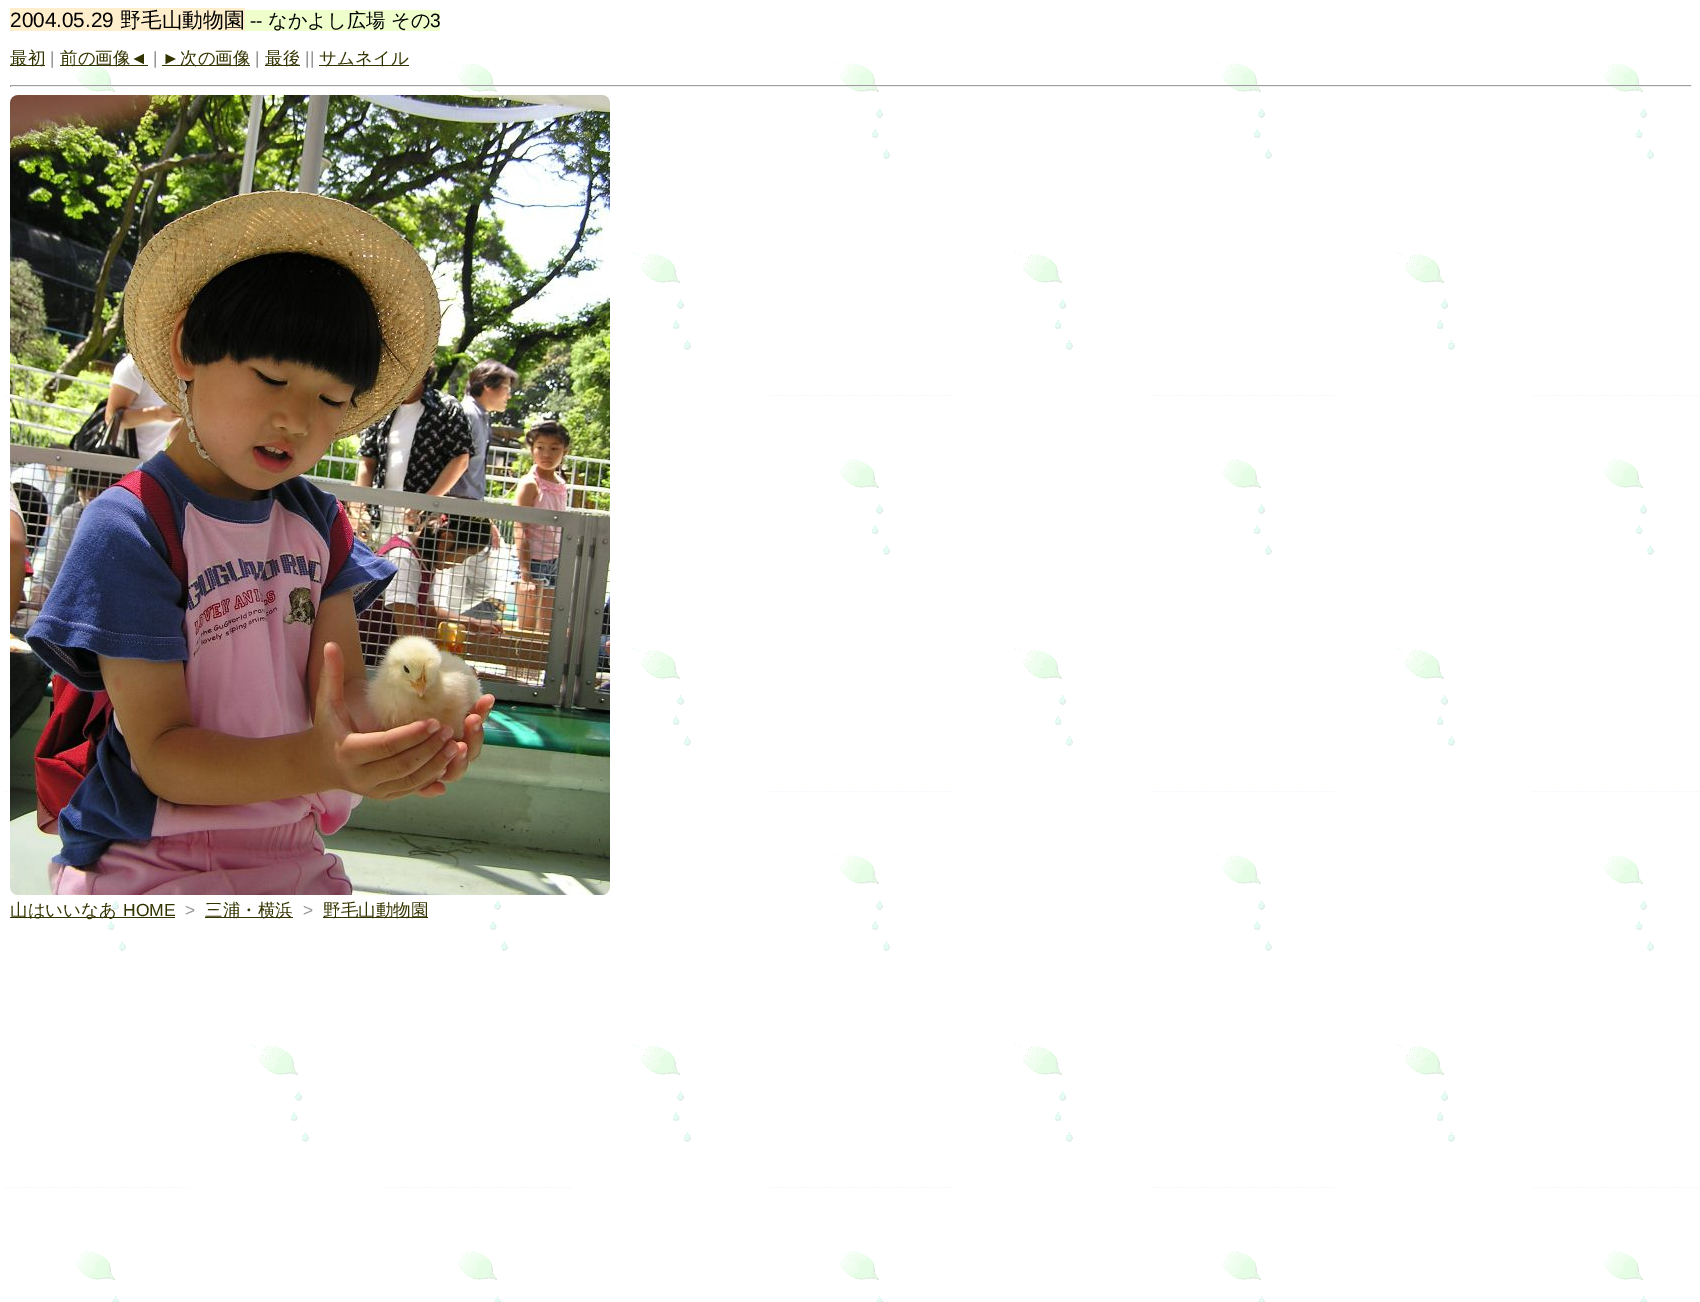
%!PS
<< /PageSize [1700 1302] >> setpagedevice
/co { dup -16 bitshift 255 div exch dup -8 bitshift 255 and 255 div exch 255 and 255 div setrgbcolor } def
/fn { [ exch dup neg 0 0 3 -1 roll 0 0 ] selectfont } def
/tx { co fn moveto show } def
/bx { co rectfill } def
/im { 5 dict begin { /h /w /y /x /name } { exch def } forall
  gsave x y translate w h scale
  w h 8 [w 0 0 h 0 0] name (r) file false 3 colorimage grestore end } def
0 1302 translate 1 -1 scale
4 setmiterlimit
0 0 1700 1302 16#FFFFFF bx
(media/1.raw) 3 61 1697 1241 im
10 8 235 23 16#FFEECC bx
245 10 195 21 16#EEFFCC bx
10 65 35 1 16#333300 bx
60 65 88 1 16#333300 bx
162 65 88 1 16#333300 bx
265 65 35 1 16#333300 bx
319 65 90 1 16#333300 bx
10 85 1682 1 16#9F9F9F bx
1691 85 1 2 16#EEEEEE bx
10 86 1682 1 16#EEEEEE bx
10 85 1 2 16#9F9F9F bx
(media/2.raw) 10 95 600 800 im
10 917 165 1 16#333300 bx
205 917 88 1 16#333300 bx
323 917 105 1 16#333300 bx
(2004.05.29) 10 27 /LiberationSans-Regular 20.75 16#000000 tx
(野毛山動物園) 120 27 /WenQuanYiZenHei-Medium 20.75 16#000000 tx
(--) 250 27 /LiberationSans-Regular 19.25 16#000000 tx
(なかよし広場 その) 268 27 /WenQuanYiZenHei-Medium 19.25 16#000000 tx
(3) 430 27 /LiberationSans-Regular 19.25 16#000000 tx
(最初) 10 64 /WenQuanYiZenHei-Medium 17.5 16#333300 tx
(|) 50 64 /LiberationSans-Regular 17.5 16#979797 tx
(前の画像) 60 64 /WenQuanYiZenHei-Medium 17.5 16#333300 tx
(◄) 130 64 /LiberationSans-Regular 17.5 16#333300 tx
(|) 153 64 /LiberationSans-Regular 17.5 16#979797 tx
(►) 162 64 /LiberationSans-Regular 17.5 16#333300 tx
(次の画像) 180 64 /WenQuanYiZenHei-Medium 17.5 16#333300 tx
(|) 255 64 /LiberationSans-Regular 17.5 16#979797 tx
(最後) 265 64 /WenQuanYiZenHei-Medium 17.5 16#333300 tx
(||) 305 64 /LiberationSans-Regular 17.5 16#979797 tx
(サムネイル) 319 64 /WenQuanYiZenHei-Medium 17.5 16#333300 tx
(山はいいなあ) 10 916 /WenQuanYiZenHei-Medium 17.5 16#333300 tx
(HOME) 123 916 /LiberationSans-Regular 17.5 16#333300 tx
(>) 185 916 /LiberationSans-Regular 17.5 16#979797 tx
(三浦・横浜) 205 916 /WenQuanYiZenHei-Medium 17.5 16#333300 tx
(>) 303 916 /LiberationSans-Regular 17.5 16#979797 tx
(野毛山動物園) 323 916 /WenQuanYiZenHei-Medium 17.5 16#333300 tx
showpage
